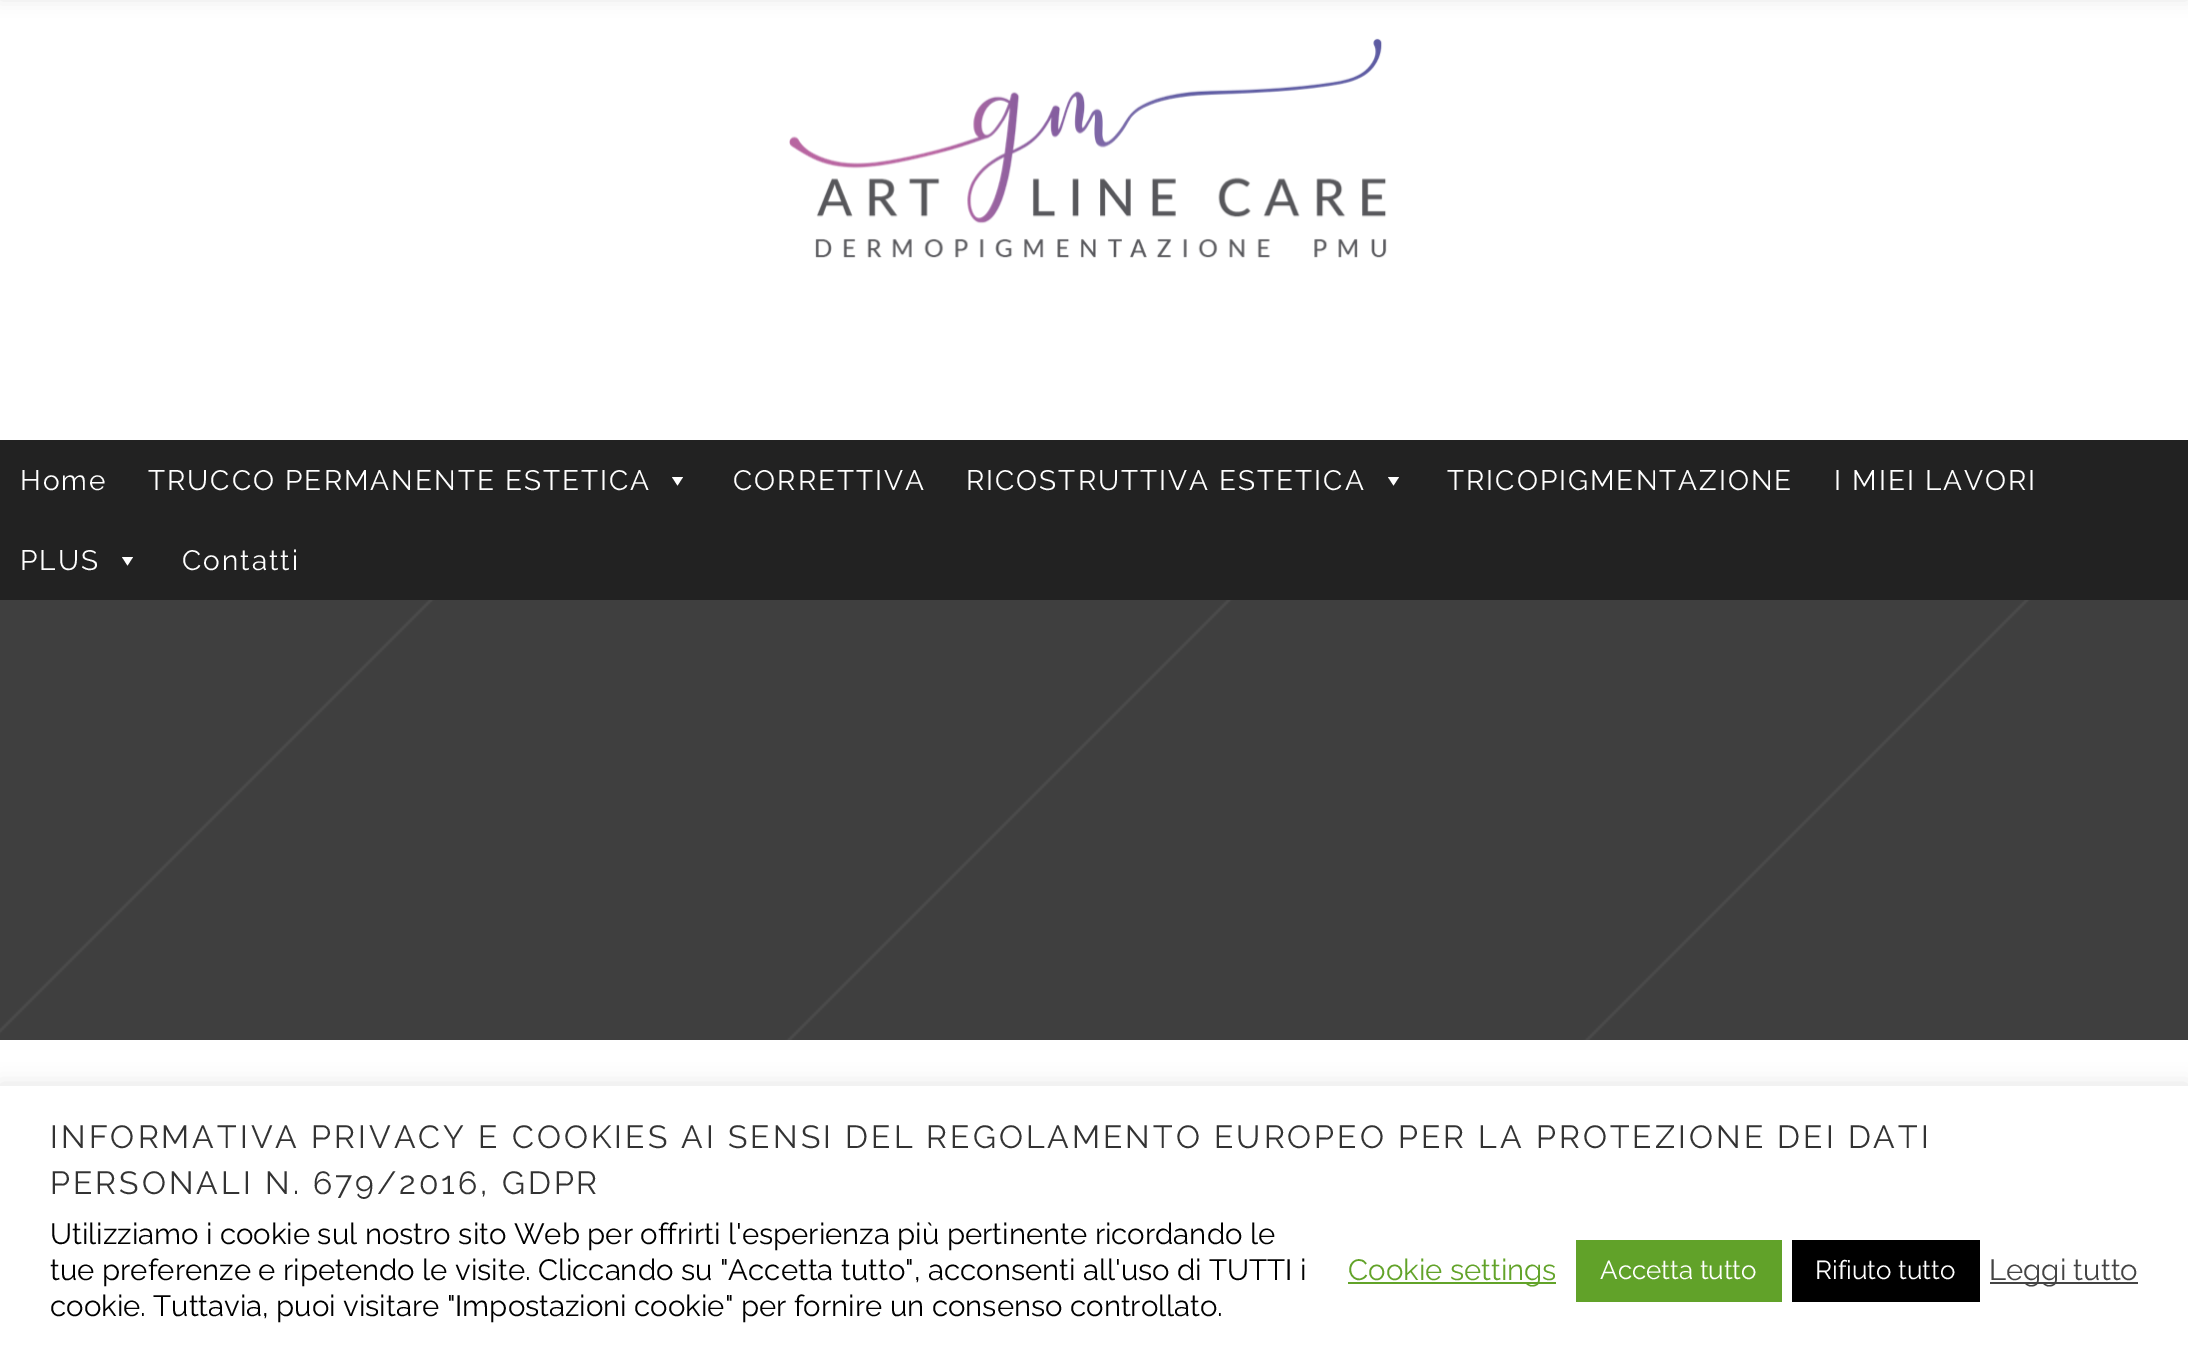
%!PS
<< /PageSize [2188 1352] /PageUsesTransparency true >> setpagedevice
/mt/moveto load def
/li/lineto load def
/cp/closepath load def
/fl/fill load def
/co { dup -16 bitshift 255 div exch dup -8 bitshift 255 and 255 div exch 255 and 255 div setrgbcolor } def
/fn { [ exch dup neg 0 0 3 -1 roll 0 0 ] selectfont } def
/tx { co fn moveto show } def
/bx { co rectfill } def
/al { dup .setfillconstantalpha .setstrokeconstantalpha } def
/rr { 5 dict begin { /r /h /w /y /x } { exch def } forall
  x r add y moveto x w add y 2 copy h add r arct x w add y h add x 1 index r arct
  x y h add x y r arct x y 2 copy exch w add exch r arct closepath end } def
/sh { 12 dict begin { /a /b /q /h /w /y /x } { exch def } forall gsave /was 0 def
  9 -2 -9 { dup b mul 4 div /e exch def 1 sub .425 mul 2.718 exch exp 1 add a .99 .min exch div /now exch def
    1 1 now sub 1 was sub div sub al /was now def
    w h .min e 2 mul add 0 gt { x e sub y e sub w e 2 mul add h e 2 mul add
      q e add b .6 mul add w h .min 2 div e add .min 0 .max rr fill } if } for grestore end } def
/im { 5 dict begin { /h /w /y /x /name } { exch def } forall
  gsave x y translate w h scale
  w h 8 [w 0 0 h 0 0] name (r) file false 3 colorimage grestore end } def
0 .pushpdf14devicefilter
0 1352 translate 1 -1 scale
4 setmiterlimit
0 0 2188 1352 16#FFFFFF bx
16#000000 co
0 -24 2188 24 0 8 .09 sh
(media/1.raw) 789 38 598 220 im
0 440 2188 160 16#222222 bx
16#FFFFFF co
683 477 mt 677.5 485.5 li 672 477 li cp fl
1399 477 mt 1393.5 485.5 li 1388 477 li cp fl
133 557 mt 127.5 565.5 li 122 557 li cp fl
(media/2.raw) 0 600 2188 440 im
16#ACABAB co
0 1084 2188 266 0 10 .3 sh
0 1086 2188 266 16#FFFFFF bx
1348 1282 208 2 16#62A329 bx
1576 1240 206 62 16#61A229 bx
1792 1240 188 62 16#000000 bx
1990 1282 148 2 16#444444 bx
/Raleway-Thin 28 fn
16#FFFFFF co
20 490 mt 2 0 (Home) ashow
148 490 mt 2 0 (TRUCCO PERMANENTE ESTETICA) ashow
733 490 mt 2 0 (CORRETTIVA) ashow
966 490 mt 2 0 (RICOSTRUTTIVA ESTETICA) ashow
1447 490 mt 2 0 (TRICOPIGMENTAZIONE) ashow
1834 490 mt 2 0 (I MIEI LAVORI) ashow
20 570 mt 2 0 (PLUS) ashow
182 570 mt 2 0 (Contatti) ashow
/Raleway-Thin 32 fn
16#333333 co
50 1148 mt 3 0 (INFORMATIVA PRIVACY E COOKIES AI SENSI DEL REGOLAMENTO EUROPEO PER LA PROTEZIONE DEI DATI) ashow
50 1194 mt 3 0 (PERSONALI N. 679/2016, GDPR) ashow
(Utilizziamo i cookie sul nostro sito Web per offrirti l'esperienza più pertinente ricordando le) 50 1244 /Raleway-Thin 29.35 16#000000 tx
(tue preferenze e ripetendo le visite. Cliccando su "Accetta tutto", acconsenti all'uso di TUTTI i) 50 1280 /Raleway-Thin 29.35 16#000000 tx
(cookie. Tuttavia, puoi visitare "Impostazioni cookie" per fornire un consenso controllato.) 50 1316 /Raleway-Thin 29.35 16#000000 tx
(Cookie settings) 1348 1280 /Raleway-Thin 29.35 16#62A329 tx
(Accetta tutto) 1600 1279 /Raleway-Thin 26 16#FFFFFF tx
(Rifiuto tutto) 1815 1279 /Raleway-Thin 26 16#FFFFFF tx
(Leggi tutto) 1989 1280 /Raleway-Thin 29.35 16#444444 tx
.poppdf14devicefilter showpage
